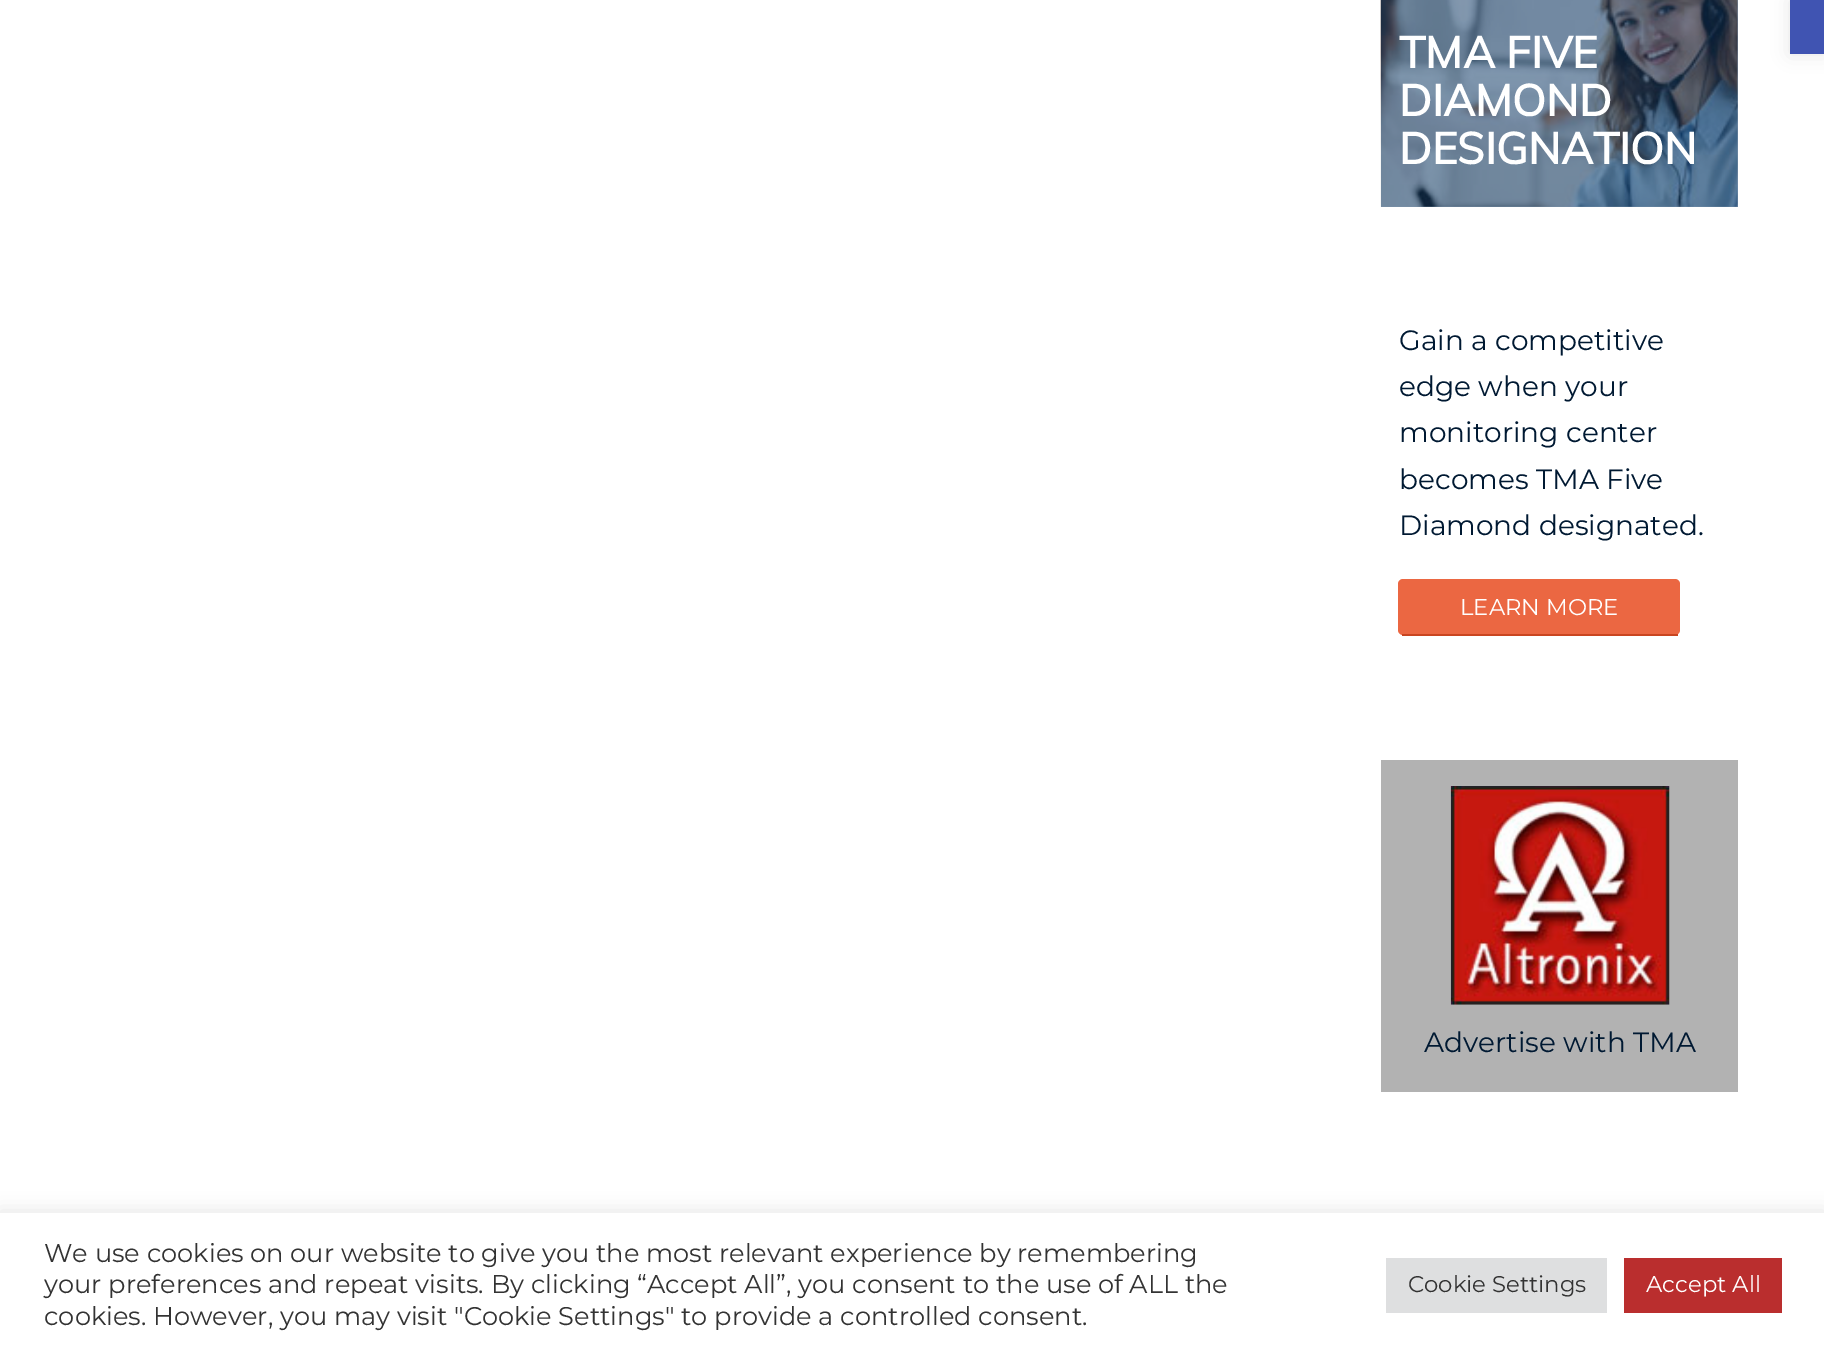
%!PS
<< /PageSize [1824 1355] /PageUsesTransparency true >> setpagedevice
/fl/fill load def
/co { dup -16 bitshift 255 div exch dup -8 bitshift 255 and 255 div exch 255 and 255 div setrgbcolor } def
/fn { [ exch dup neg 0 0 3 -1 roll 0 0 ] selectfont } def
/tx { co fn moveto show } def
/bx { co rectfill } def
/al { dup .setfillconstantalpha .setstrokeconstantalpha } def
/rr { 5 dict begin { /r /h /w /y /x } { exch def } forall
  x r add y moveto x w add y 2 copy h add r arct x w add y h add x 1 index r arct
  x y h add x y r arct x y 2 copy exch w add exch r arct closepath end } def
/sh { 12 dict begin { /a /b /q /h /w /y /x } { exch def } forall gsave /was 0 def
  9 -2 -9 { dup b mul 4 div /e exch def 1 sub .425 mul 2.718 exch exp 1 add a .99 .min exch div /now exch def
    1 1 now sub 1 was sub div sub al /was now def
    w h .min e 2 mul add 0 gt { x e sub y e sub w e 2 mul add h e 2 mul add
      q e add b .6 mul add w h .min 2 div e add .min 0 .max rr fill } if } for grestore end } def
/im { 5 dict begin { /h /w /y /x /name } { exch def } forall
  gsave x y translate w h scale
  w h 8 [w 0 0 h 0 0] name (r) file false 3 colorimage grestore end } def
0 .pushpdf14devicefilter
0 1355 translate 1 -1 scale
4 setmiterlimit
0 0 1824 1355 16#FFFFFF bx
1381 0 357 207 16#8297AD bx
(media/1.raw) 1380 0 358 207 im
16#EB6742 co
1398 579 282 56 5 rr fl
1402 634 276 2 16#C94520 bx
1381 760 357 332 16#B2B2B2 bx
(media/2.raw) 1450 786 220 219 im
16#000000 co
1790 0 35 54 0 9 .1 sh
1790 0 34 54 16#4054B2 bx
16#ACABAB co
0 1211 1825 144 0 9 .3 sh
0 1213 1824 142 16#FFFFFF bx
1386 1258 221 55 16#DEDFE0 bx
1624 1258 158 55 16#BA2E2E bx
(TMA FIVE) 1399 68 /Muli-Bold 43.75 16#FFFFFF tx
(DIAMOND) 1399 116 /Muli-Bold 43.75 16#FFFFFF tx
(DESIGNATION) 1399 164 /Muli-Bold 43.75 16#FFFFFF tx
(Gain a competitive) 1399 350 /Montserrat-Thin 28 16#001932 tx
(edge when your) 1399 396 /Montserrat-Thin 28 16#001932 tx
(monitoring center) 1399 442 /Montserrat-Thin 28 16#001932 tx
(becomes TMA Five) 1399 489 /Montserrat-Thin 28 16#001932 tx
(Diamond designated.) 1399 535 /Montserrat-Thin 28 16#001932 tx
(LEARN MORE) 1460 615 /Montserrat-Thin 22.75 16#FFFFFF tx
(Advertise with TMA) 1424 1052 /Montserrat-Thin 28 16#001932 tx
(We use cookies on our website to give you the most relevant experience by remembering) 44 1262 /Montserrat-Thin 25.65 16#333333 tx
(your preferences and repeat visits. By clicking “Accept All”, you consent to the use of ALL the) 44 1293 /Montserrat-Thin 25.65 16#333333 tx
(cookies. However, you may visit "Cookie Settings" to provide a controlled consent.) 44 1325 /Montserrat-Thin 25.65 16#333333 tx
(Cookie Settings) 1408 1292 /Montserrat-Thin 22.75 16#333333 tx
(Accept All) 1646 1292 /Montserrat-Thin 22.75 16#FFFFFF tx
.poppdf14devicefilter showpage
